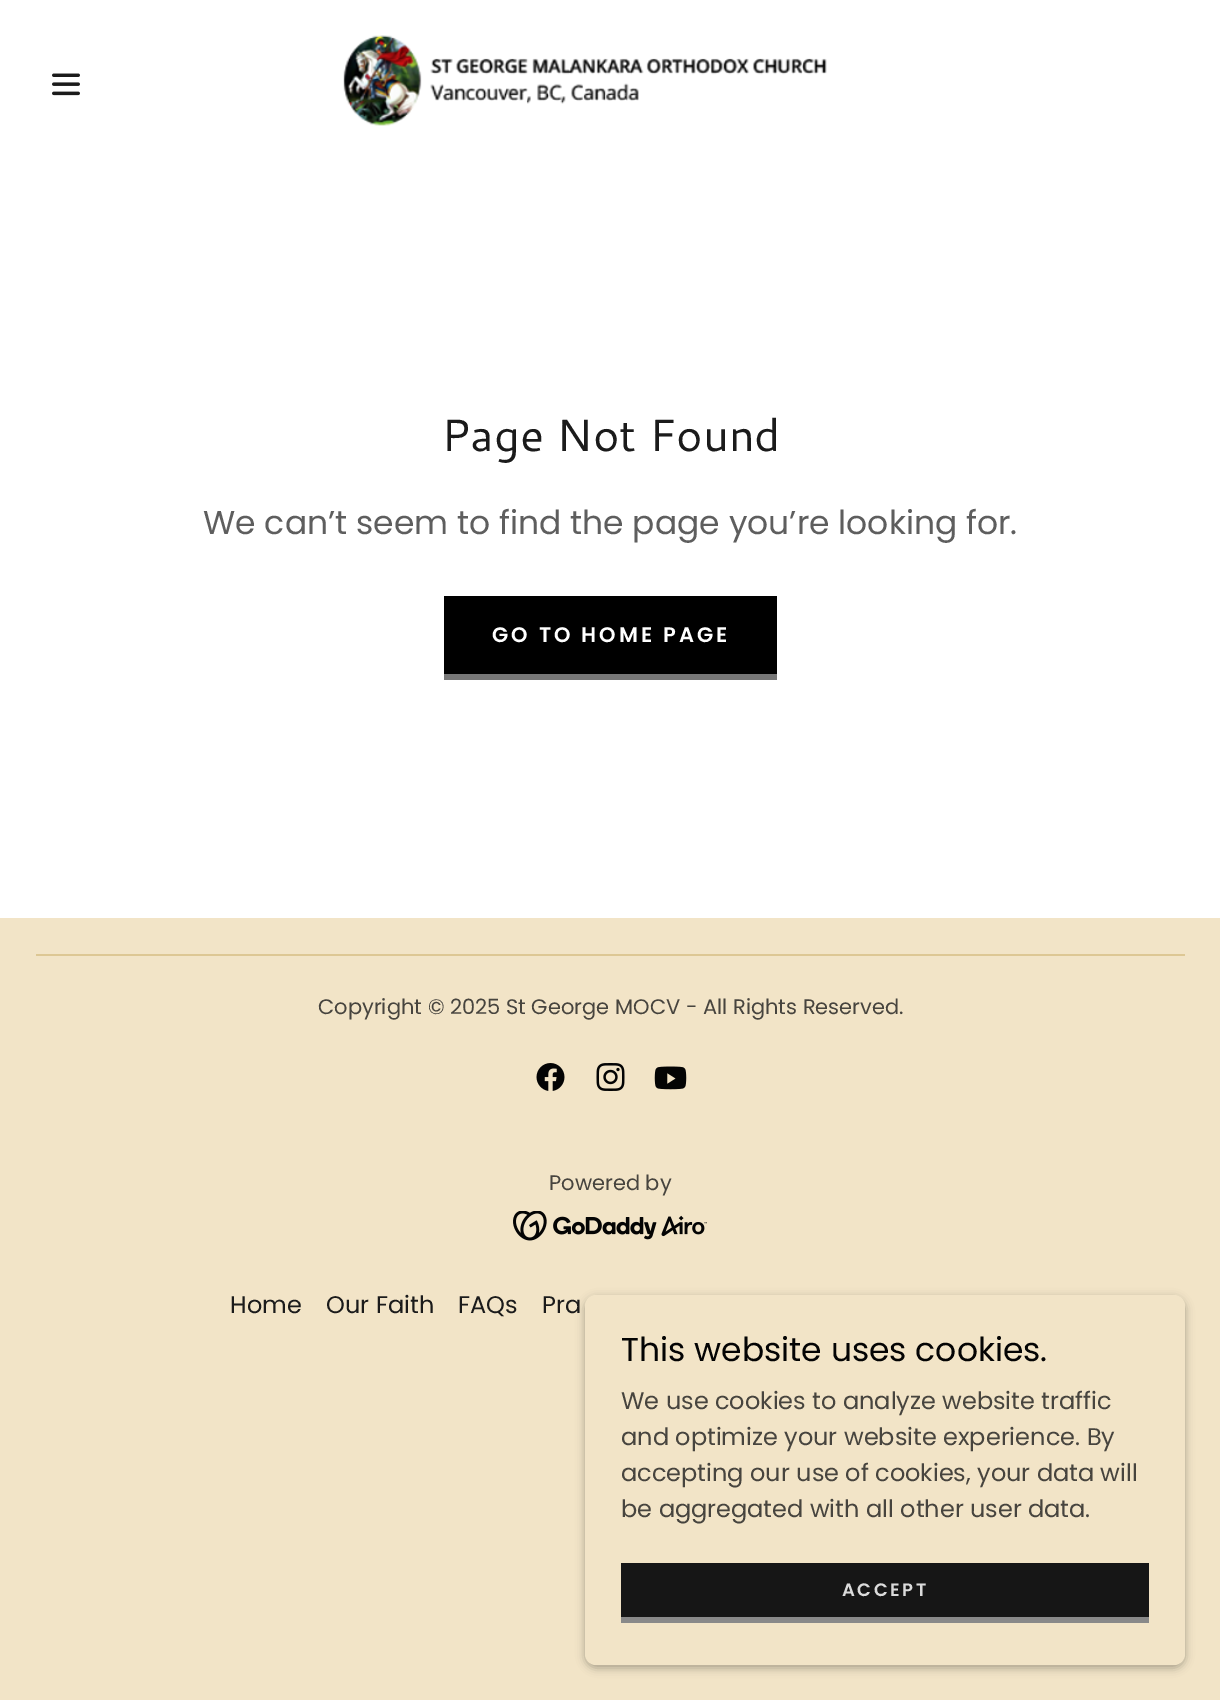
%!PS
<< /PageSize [1220 1700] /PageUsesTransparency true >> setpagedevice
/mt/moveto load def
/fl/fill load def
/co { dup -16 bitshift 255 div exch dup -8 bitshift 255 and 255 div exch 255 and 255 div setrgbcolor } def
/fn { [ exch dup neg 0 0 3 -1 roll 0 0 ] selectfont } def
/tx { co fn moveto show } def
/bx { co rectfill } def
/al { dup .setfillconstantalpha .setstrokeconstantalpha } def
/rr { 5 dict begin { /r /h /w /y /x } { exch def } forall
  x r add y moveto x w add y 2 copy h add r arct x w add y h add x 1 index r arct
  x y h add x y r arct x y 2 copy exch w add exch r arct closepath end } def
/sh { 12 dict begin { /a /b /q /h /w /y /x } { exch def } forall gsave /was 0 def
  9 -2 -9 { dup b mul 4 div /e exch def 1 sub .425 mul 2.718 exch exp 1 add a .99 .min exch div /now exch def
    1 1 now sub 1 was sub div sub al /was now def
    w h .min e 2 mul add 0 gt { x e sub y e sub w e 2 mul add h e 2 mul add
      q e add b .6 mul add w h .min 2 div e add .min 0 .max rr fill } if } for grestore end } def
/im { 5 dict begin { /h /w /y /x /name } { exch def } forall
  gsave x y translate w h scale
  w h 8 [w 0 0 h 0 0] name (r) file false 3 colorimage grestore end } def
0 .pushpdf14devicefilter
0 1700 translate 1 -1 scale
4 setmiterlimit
0 0 1220 1700 16#F2E4C7 bx
0 0 1220 918 16#FFFFFF bx
(media/1.raw) 52 73 28 23 im
(media/2.raw) 343 35 484 91 im
444 596 333 78 16#000000 bx
444 674 333 6 16#777777 bx
36 954 1149 2 16#DDC794 bx
(media/3.raw) 536 1063 29 28 im
(media/4.raw) 596 1063 29 28 im
(media/5.raw) 654 1066 33 24 im
(media/6.raw) 513 1211 194 30 im
16#000000 co
585 1298 600 370 11 4.5 .3 sh
16#F2E4C7 co
585 1295 600 370 11 rr fl
621 1563 528 54 16#161616 bx
621 1617 528 6 16#898989 bx
(Page Not Found) 441 451 /Cantarell-Regular 45 16#1B1B1B tx
(We can’t seem to find the page you’re looking for.) 203 534 /Poppins-Regular 33 16#5E5E5E tx
/Poppins-SemiBold 21 fn
16#FFFFFF co
492 642 mt 3 0 (GO TO HOME PAGE) ashow
(Copyright © 2025 St George MOCV - All Rights Reserved.) 318 1014 /Poppins-Regular 21 16#47443E tx
(Powered by) 549 1190 /Poppins-Regular 21 16#47443E tx
(Home) 230 1313 /Poppins-Regular 24 16#1B1B1B tx
(Our Faith) 326 1313 /Poppins-Regular 24 16#1B1B1B tx
(FAQs) 458 1313 /Poppins-Regular 24 16#1B1B1B tx
(Pra) 542 1313 /Poppins-Regular 24 16#1B1B1B tx
(This website uses cookies.) 621 1361 /Poppins-Regular 33 16#040404 tx
(We use cookies to analyze website traffic) 621 1409 /Poppins-Regular 24 16#47443E tx
(and optimize your website experience. By) 621 1445 /Poppins-Regular 24 16#47443E tx
(accepting our use of cookies, your data will) 621 1481 /Poppins-Regular 24 16#47443E tx
(be aggregated with all other user data.) 621 1517 /Poppins-Regular 24 16#47443E tx
/Poppins-SemiBold 18 fn
16#DBDBDB co
842 1596 mt 2.5 0 (ACCEPT) ashow
.poppdf14devicefilter showpage
